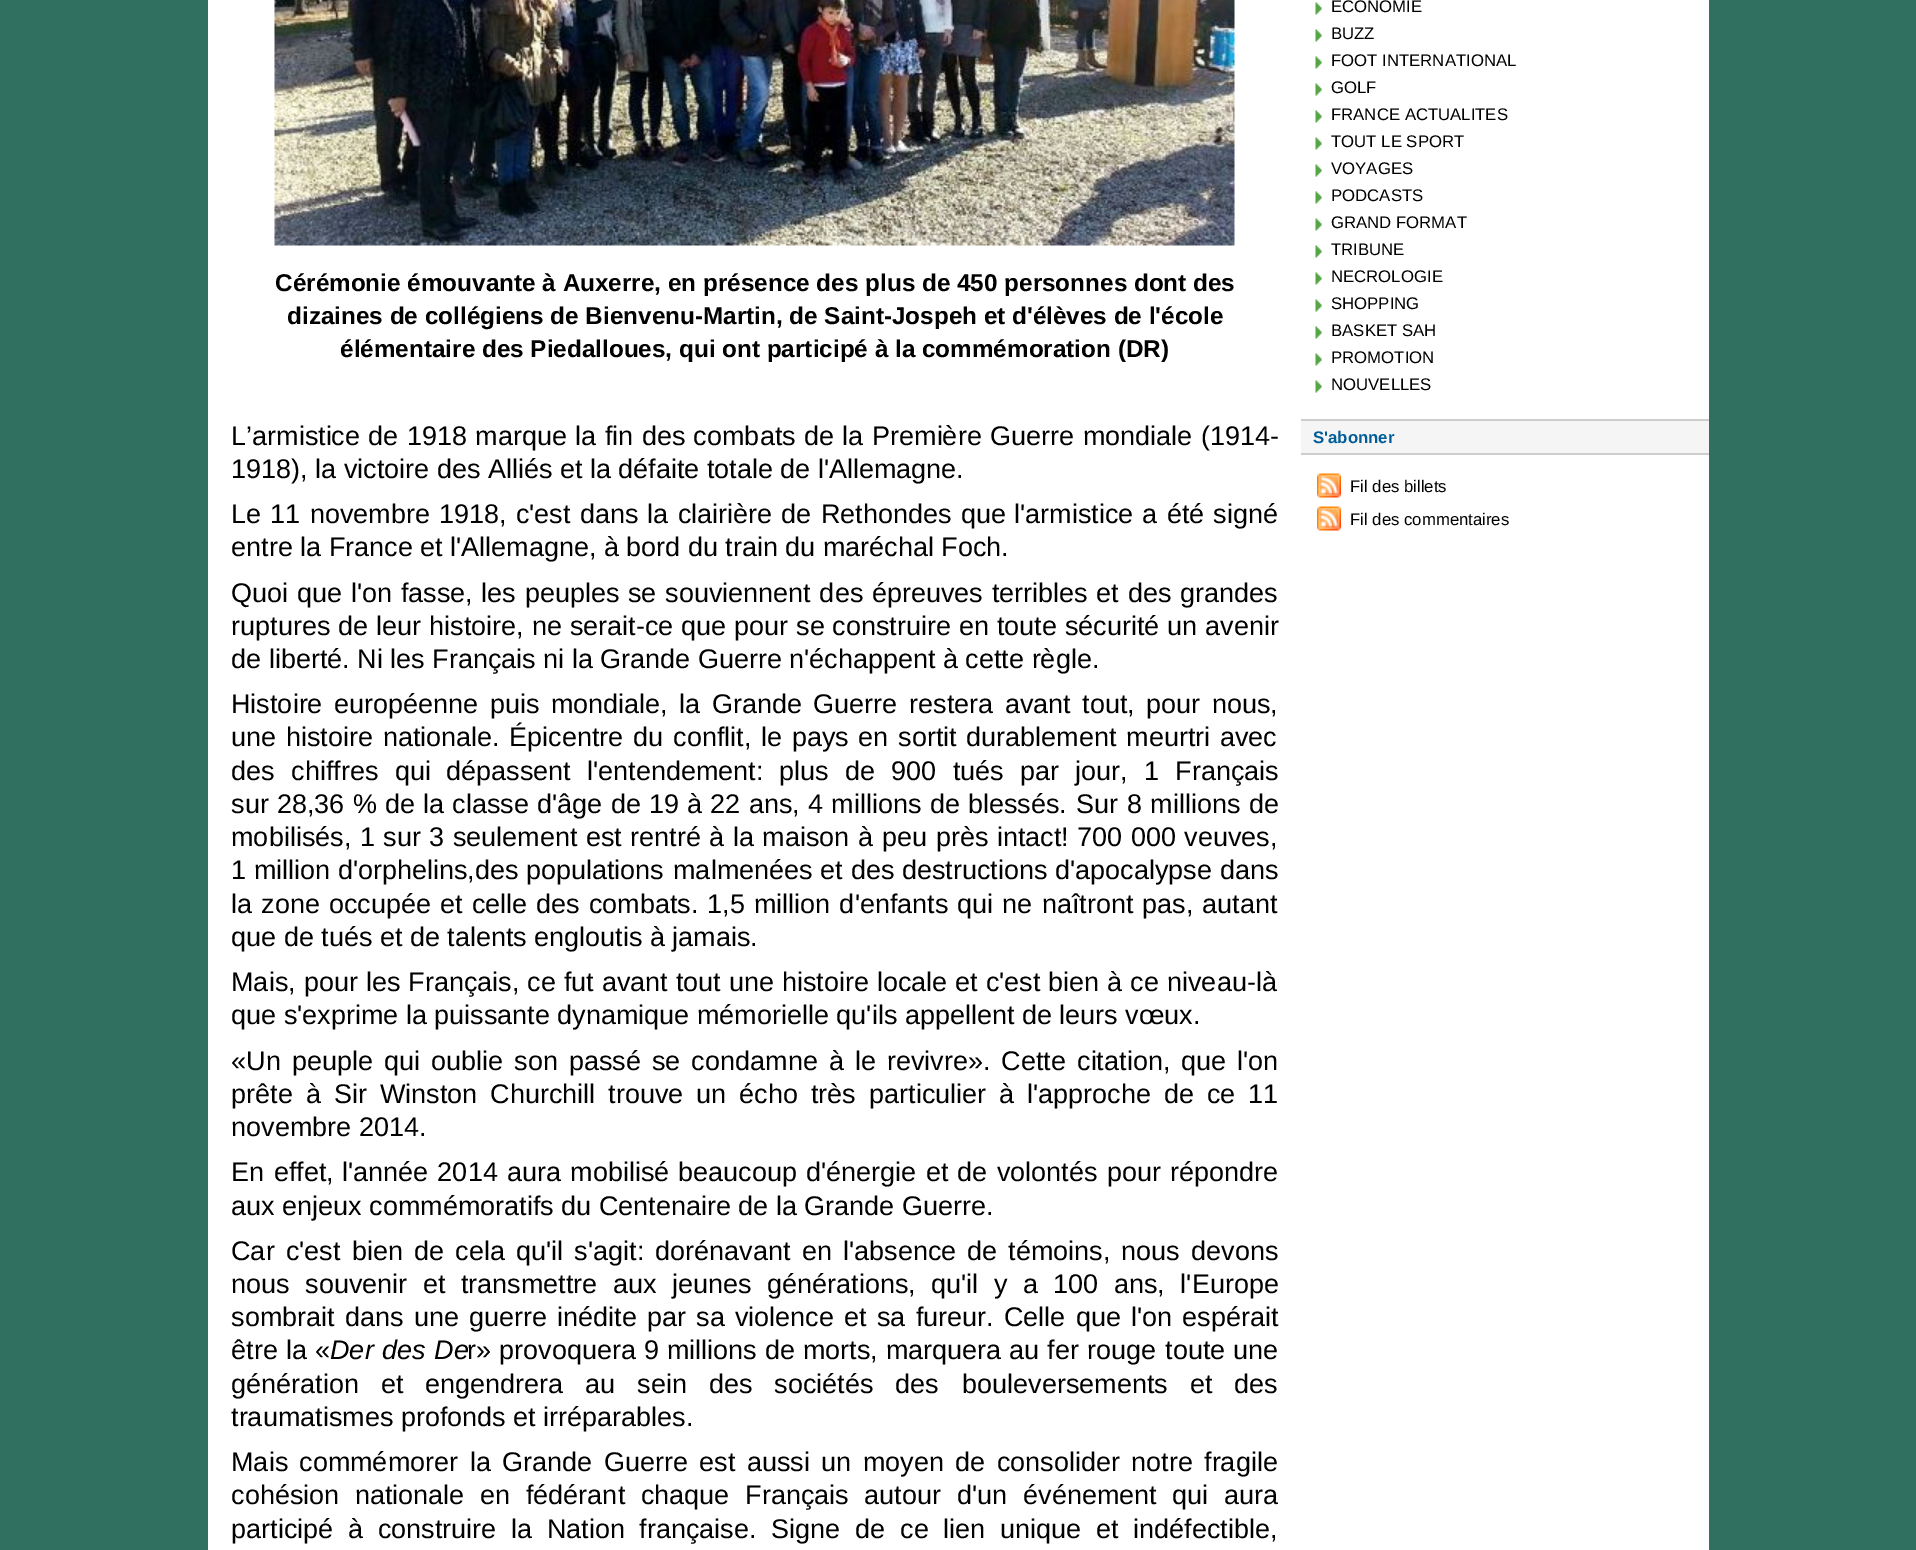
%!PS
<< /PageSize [1916 1550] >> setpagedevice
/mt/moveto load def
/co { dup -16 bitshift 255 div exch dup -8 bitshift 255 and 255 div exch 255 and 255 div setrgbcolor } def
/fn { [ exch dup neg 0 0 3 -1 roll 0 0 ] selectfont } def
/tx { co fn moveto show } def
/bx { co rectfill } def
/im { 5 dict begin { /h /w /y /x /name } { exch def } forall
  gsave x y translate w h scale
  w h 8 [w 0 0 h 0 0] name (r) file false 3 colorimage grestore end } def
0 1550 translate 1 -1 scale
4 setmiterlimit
0 0 1916 1550 16#307061 bx
208 0 1501 1550 16#FFFFFF bx
(media/1.raw) 274 0 961 246 im
(media/2.raw) 1315 2 7 13 im
(media/2.raw) 1315 29 7 13 im
(media/2.raw) 1315 56 7 13 im
(media/2.raw) 1315 83 7 13 im
(media/2.raw) 1315 110 7 13 im
(media/2.raw) 1315 137 7 13 im
(media/2.raw) 1315 164 7 13 im
(media/2.raw) 1315 191 7 13 im
(media/2.raw) 1315 218 7 13 im
(media/2.raw) 1315 245 7 13 im
(media/2.raw) 1315 272 7 13 im
(media/2.raw) 1315 299 7 13 im
(media/2.raw) 1315 326 7 13 im
(media/2.raw) 1315 353 7 13 im
(media/2.raw) 1315 380 7 13 im
1301 421 408 32 16#F5F5F5 bx
1301 419 408 2 16#CDCDCD bx
1301 453 408 2 16#CDCDCD bx
(media/3.raw) 1317 473 24 25 im
(media/3.raw) 1317 506 24 25 im
(Cérémonie émouvante à Auxerre, en présence des plus de 450 personnes dont des) 275 291 /LiberationSans-Bold 24.3 16#000000 tx
(dizaines de collégiens de Bienvenu-Martin, de Saint-Jospeh et d'élèves de l'école) 287 324 /LiberationSans-Bold 24.3 16#000000 tx
(élémentaire des Piedalloues, qui ont participé à la commémoration \(DR\)) 340 357 /LiberationSans-Bold 24.3 16#000000 tx
/LiberationSans-Regular 27 fn
231 445 mt .9 0 32 (L’armistice de 1918 marque la fin des combats de la) widthshow
872 445 mt 1 0 32 (Première Guerre mondiale \(1914-) widthshow
(1918\), la victoire des Alliés et la défaite totale de l'Allemagne.) 231 478 /LiberationSans-Regular 27 16#000000 tx
231 523 mt 1.75 0 32 (Le 11 novembre 1918, c'est dans la clairière de Rethondes que) widthshow
1014 523 mt 1.75 0 32 (l'armistice a été signé) widthshow
(entre la France et l'Allemagne, à bord du train du maréchal Foch.) 231 556 /LiberationSans-Regular 27 16#000000 tx
231 602 mt 1.25 0 32 (Quoi que l'on fasse, les peuples se souviennent des épreuves terribles et) widthshow
1128 602 mt 1 0 32 (des grandes) widthshow
231 635 mt .5 0 32 (ruptures de leur histoire, ne serait-ce que pour se) widthshow
832 635 mt .5 0 32 (construire en toute sécurité un avenir) widthshow
(de liberté. Ni les Français ni la Grande Guerre n'échappent à cette règle.) 231 668 /LiberationSans-Regular 27 16#000000 tx
231 713 mt 4 0 32 (Histoire européenne puis mondiale, la Grande Guerre) widthshow
909 713 mt 4 0 32 (restera avant tout, pour nous,) widthshow
231 746 mt 2.25 0 32 (une histoire nationale. Épicentre du) widthshow
673 746 mt 2.25 0 32 (conflit, le pays en sortit durablement meurtri avec) widthshow
231 780 mt 9 0 32 (des chiffres qui) widthshow
446 780 mt 8.75 0 32 (dépassent l'entendement: plus de 900 tués par jour, 1 Français) widthshow
231 813 mt .75 0 32 (sur 28,36 % de la classe d'âge de 19 à 22 ans, 4 millions de blessés.) widthshow
1076 813 mt 1 0 32 (Sur 8 millions de) widthshow
231 846 mt 1 0 32 (mobilisés, 1 sur 3 seulement est rentré à la maison à) widthshow
882 846 mt 1 0 32 (peu près intact! 700 000 veuves,) widthshow
(1 million d'orphelins,des populations) 231 879 /LiberationSans-Regular 27 16#000000 tx
673 879 mt .25 0 32 (malmenées et des destructions d'apocalypse dans) widthshow
231 913 mt 1.6 0 32 (la zone occupée et celle) widthshow
536 913 mt 1.6 0 32 (des combats. 1,5 million d'enfants qui ne naîtront pas, autant) widthshow
(que de tués et de talents engloutis à jamais.) 231 946 /LiberationSans-Regular 27 16#000000 tx
231 991 mt .5 0 32 (Mais, pour les Français,) widthshow
527 991 mt .5 0 32 (ce fut avant tout une histoire locale et c'est bien à ce niveau-là) widthshow
(que s'exprime la puissante dynamique mémorielle qu'ils appellent de leurs vœux.) 231 1024 /LiberationSans-Regular 27 16#000000 tx
231 1070 mt 3.6 0 32 («Un peuple qui oublie son passé se condamne à le revivre». Cette) widthshow
1077 1070 mt 3.6 0 32 (citation, que l'on) widthshow
231 1103 mt 5.5 0 32 (prête à Sir Winston Churchill trouve un écho très) widthshow
869 1103 mt 5.5 0 32 (particulier à l'approche de ce 11) widthshow
(novembre 2014.) 231 1136 /LiberationSans-Regular 27 16#000000 tx
231 1181 mt 2 0 32 (En effet,) widthshow
342 1181 mt 1.75 0 32 (l'année 2014 aura mobilisé beaucoup d'énergie et de volontés pour) widthshow
(répondre) 1170 1181 /LiberationSans-Regular 27 16#000000 tx
(aux enjeux commémoratifs du Centenaire de la Grande Guerre.) 231 1215 /LiberationSans-Regular 27 16#000000 tx
231 1260 mt 3.75 0 32 (Car c'est bien de cela qu'il s'agit: dorénavant en l'absence de) widthshow
1008 1260 mt 3.75 0 32 (témoins, nous devons) widthshow
231 1293 mt 8 0 32 (nous souvenir et transmettre aux jeunes) widthshow
767 1293 mt 8 0 32 (générations, qu'il y a 100 ans, l'Europe) widthshow
231 1326 mt 2.75 0 32 (sombrait dans une guerre) widthshow
557 1326 mt 2.75 0 32 (inédite par sa violence et sa fureur. Celle que l'on espérait) widthshow
231 1359 mt .5 0 32 (être la) widthshow
(«) 315 1359 /LiberationSans-Regular 27 16#000000 tx
/LiberationSans-Italic 27 fn
330 1359 mt 1 0 32 (Der des De) widthshow
/LiberationSans-Regular 27 fn
467 1359 mt .5 0 32 (r» provoquera 9 millions de morts, marquera au fer rouge) widthshow
1165 1359 mt .5 0 32 (toute une) widthshow
231 1393 mt 14.5 0 32 (génération et engendrera au sein des sociétés des) widthshow
962 1393 mt 14.5 0 32 (bouleversements et des) widthshow
(traumatismes profonds et irréparables.) 231 1426 /LiberationSans-Regular 27 16#000000 tx
(Mais) 231 1471 /LiberationSans-Regular 27 16#000000 tx
299 1471 mt 4 0 32 (commémorer la Grande Guerre est aussi un moyen de consolider notre) widthshow
(fragile) 1204 1471 /LiberationSans-Regular 27 16#000000 tx
231 1504 mt 8.25 0 32 (cohésion nationale en fédérant chaque Français autour d'un) widthshow
1023 1504 mt 8.25 0 32 (événement qui aura) widthshow
231 1538 mt 7.25 0 32 (participé à construire la Nation française. Signe de) widthshow
900 1538 mt 7.25 0 32 (ce lien unique et indéfectible,) widthshow
(ECONOMIE) 1331 12 /LiberationSans-Regular 16.75 16#000000 tx
(BUZZ) 1331 39 /LiberationSans-Regular 16.75 16#000000 tx
(FOOT INTERNATIONAL) 1331 66 /LiberationSans-Regular 16.75 16#000000 tx
(GOLF) 1331 93 /LiberationSans-Regular 16.75 16#000000 tx
(FRANCE ACTUALITES) 1331 120 /LiberationSans-Regular 16.75 16#000000 tx
(TOUT LE SPORT) 1331 147 /LiberationSans-Regular 16.75 16#000000 tx
(VOYAGES) 1331 174 /LiberationSans-Regular 16.75 16#000000 tx
(PODCASTS) 1331 201 /LiberationSans-Regular 16.75 16#000000 tx
(GRAND FORMAT) 1331 228 /LiberationSans-Regular 16.75 16#000000 tx
(TRIBUNE) 1331 255 /LiberationSans-Regular 16.75 16#000000 tx
(NECROLOGIE) 1331 282 /LiberationSans-Regular 16.75 16#000000 tx
(SHOPPING) 1331 309 /LiberationSans-Regular 16.75 16#000000 tx
(BASKET SAH) 1331 336 /LiberationSans-Regular 16.75 16#000000 tx
(PROMOTION) 1331 363 /LiberationSans-Regular 16.75 16#000000 tx
(NOUVELLES) 1331 390 /LiberationSans-Regular 16.75 16#000000 tx
(S'abonner) 1313 443 /LiberationSans-Bold 16.75 16#005D99 tx
(Fil des billets) 1350 492 /LiberationSans-Regular 16.75 16#000000 tx
(Fil des commentaires) 1350 525 /LiberationSans-Regular 16.75 16#000000 tx
showpage
